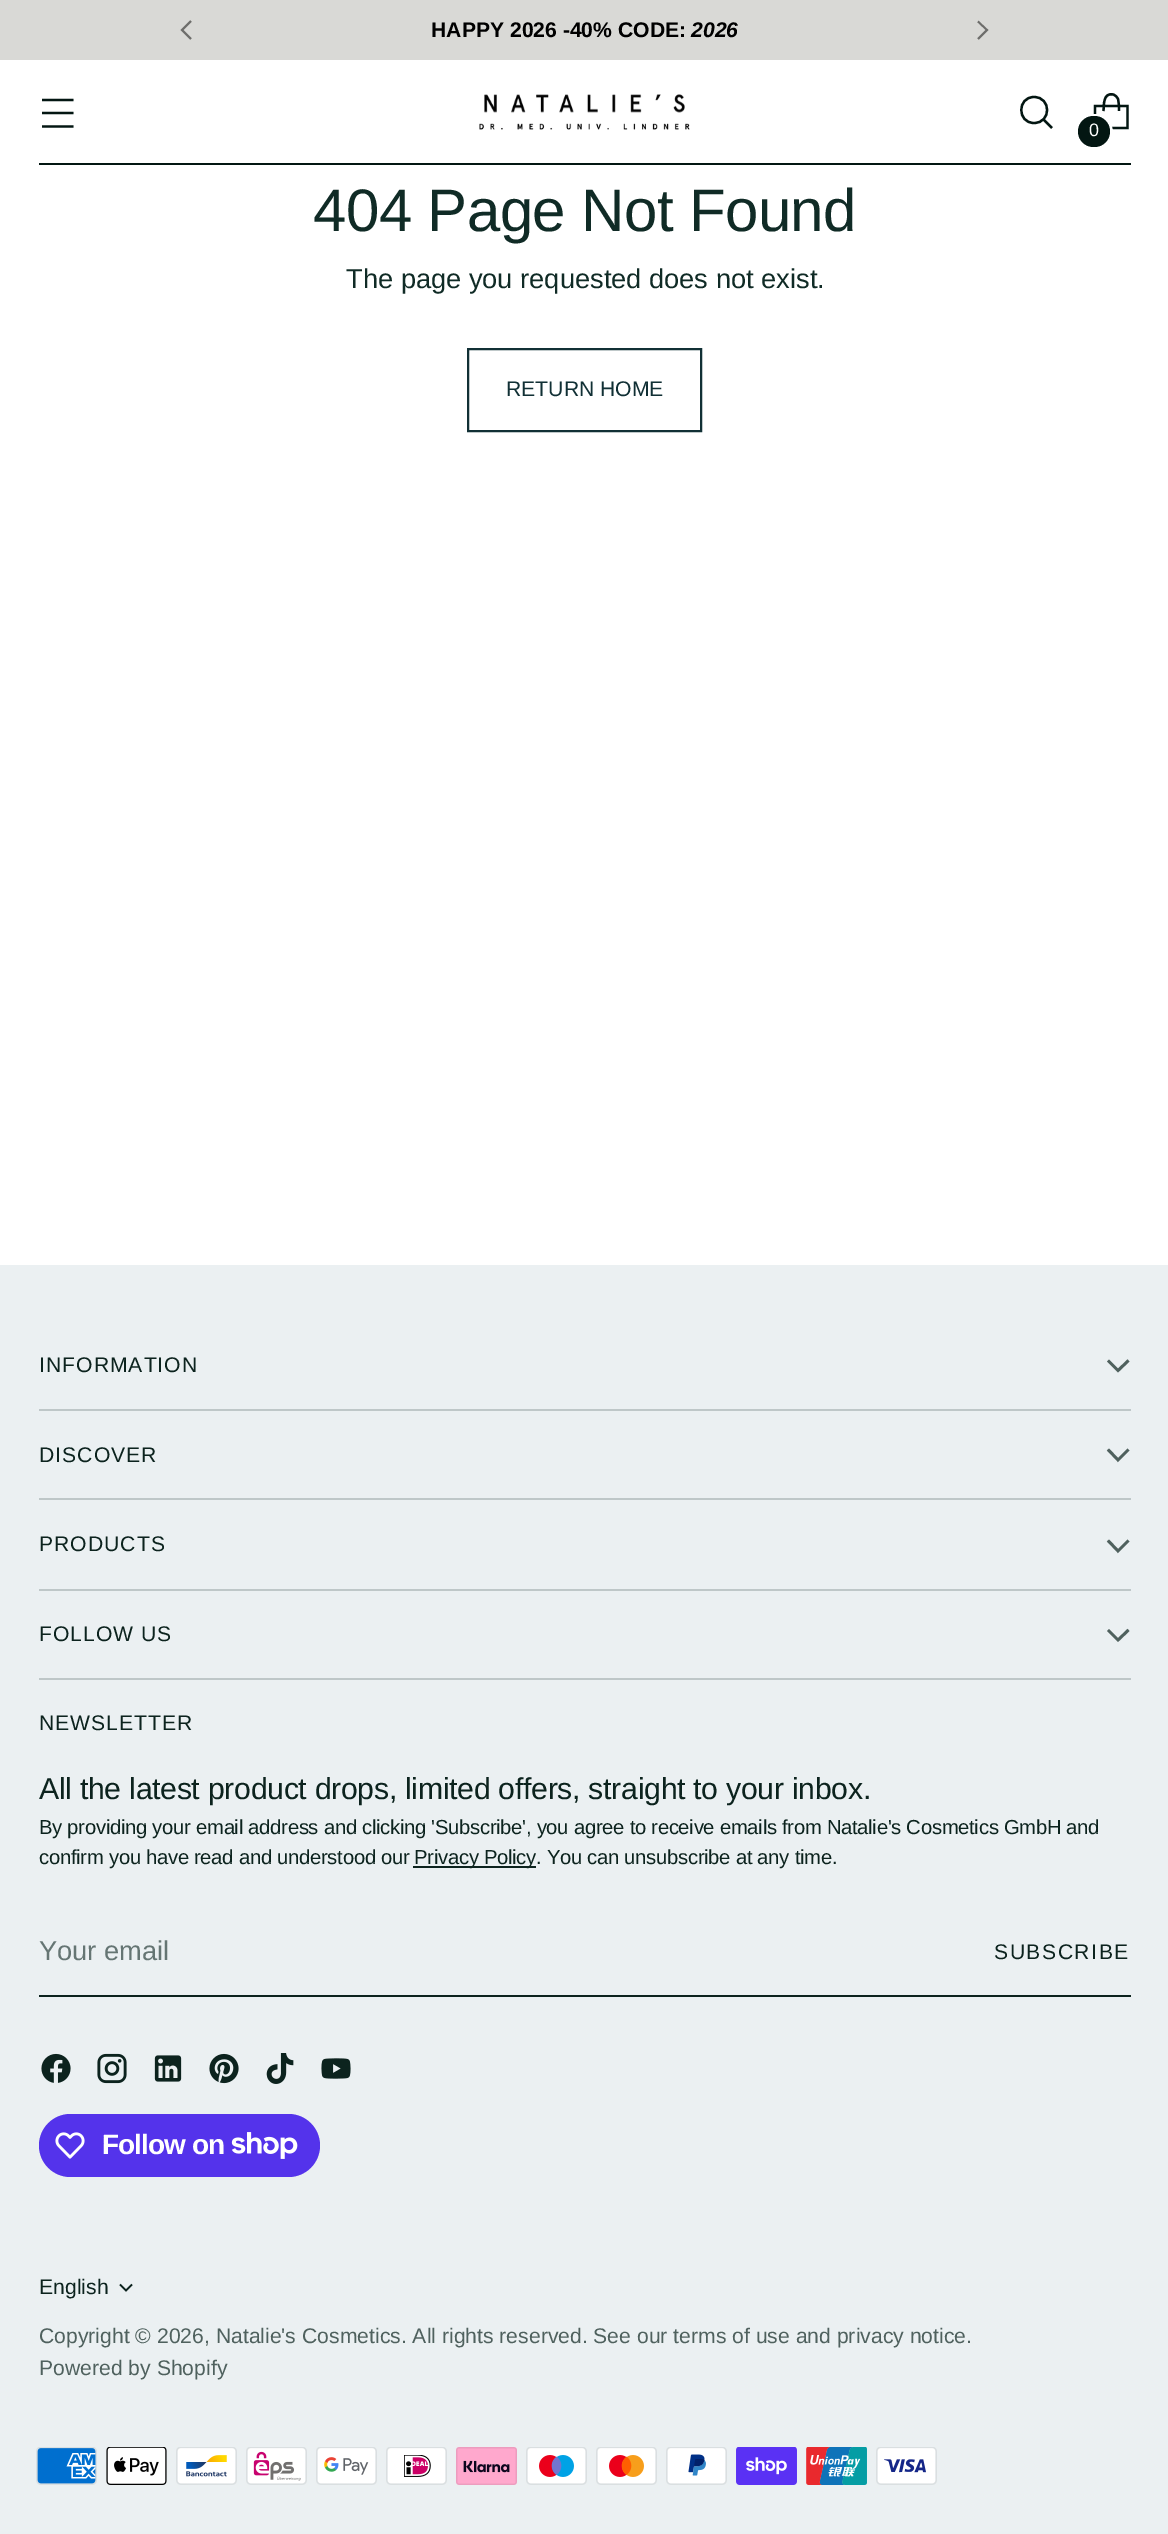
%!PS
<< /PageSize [1168 2534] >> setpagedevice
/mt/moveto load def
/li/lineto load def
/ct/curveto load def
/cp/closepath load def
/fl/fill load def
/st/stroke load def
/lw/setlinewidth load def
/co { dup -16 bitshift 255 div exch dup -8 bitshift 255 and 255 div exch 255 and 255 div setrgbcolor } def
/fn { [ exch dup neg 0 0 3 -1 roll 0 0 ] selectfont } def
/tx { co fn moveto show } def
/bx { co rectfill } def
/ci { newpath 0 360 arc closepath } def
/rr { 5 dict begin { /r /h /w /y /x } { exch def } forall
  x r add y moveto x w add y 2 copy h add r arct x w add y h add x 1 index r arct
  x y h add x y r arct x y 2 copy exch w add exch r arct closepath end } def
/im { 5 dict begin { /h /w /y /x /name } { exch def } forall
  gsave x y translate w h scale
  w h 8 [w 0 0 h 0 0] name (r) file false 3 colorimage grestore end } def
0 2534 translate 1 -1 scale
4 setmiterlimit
0 0 1168 2534 16#FFFFFF bx
0 0 1168 60 16#D9D9D6 bx
16#6D6D6B co
1.8 lw
191 21 mt 182 30 li 191 39 li st
978 39 mt 987 30 li 978 21.5 li st
39 163 1092 2 16#031612 bx
2.3 lw
42 113 mt 73.5 113 li 42 100 mt 73.5 100 li 42 126.5 mt 73.5 126.5 li st
(media/1.raw) 479 94 211 36 im
1 setlinecap
1034 123 mt 1051.5 123 1051.5 97 1034 97 ct 1017 97 1017 123 1034 123 ct cp st
0 setlinecap
1043.5 119.5 mt 1052 128 li st
2 setlinejoin
1119 111 mt 1119 107 1119 103 1118 99 ct 1117 97 1115.5 95 1113 94.5 ct 1103 92.5 1104 105 1103.5 111 ct st
0 setlinejoin
1127.5 128 mt 1127.5 106 li 1095 106 li 1095 128 li cp st
16#FFFFFF co
3 lw
1094.5 132.5 17 ci st
16#031612 co
1078 116 32 31 15.5 rr fl
16#113035 co
2 lw
468 349 233 82 rectstroke
0 1265 1168 1269 16#EBF0F2 bx
39 1409 1092 2 16#BEC7C8 bx
16#4F615E co
2.8 lw
1108 1360.5 mt 1118 1370.5 li 1128.5 1360.5 li st
39 1498 1092 2 16#BEC7C8 bx
16#4F615E co
1108 1449.5 mt 1118 1460 li 1128.5 1449.5 li st
39 1589 1092 2 16#BEC7C8 bx
16#4F615E co
1108 1540.5 mt 1118 1551 li 1128.5 1540.5 li st
39 1678 1092 2 16#BEC7C8 bx
16#4F615E co
1108 1630 mt 1118 1640 li 1128.5 1630 li st
413 1866 123 2 16#0C231E bx
39 1995 1092 2 16#0C231E bx
(media/2.raw) 41 2053 30 30 im
(media/3.raw) 97 2053 30 31 im
(media/4.raw) 154 2055 28 27 im
(media/5.raw) 209 2053 30 31 im
(media/6.raw) 266 2053 28 31 im
(media/7.raw) 321 2058 30 21 im
16#5433EB co
39 2114 281 63 31.5 rr fl
(media/8.raw) 55 2132 30 27 im
(media/9.raw) 231 2132 67 27 im
16#0C231E co
1.6 lw
120 2284.5 mt 126 2290.5 li 132 2284.5 li st
(media/10.raw) 36 2447 61 38 im
(media/11.raw) 106 2447 61 38 im
(media/12.raw) 176 2447 61 38 im
(media/13.raw) 246 2447 61 38 im
(media/14.raw) 316 2447 61 38 im
(media/15.raw) 386 2447 61 38 im
(media/16.raw) 456 2447 61 38 im
(media/17.raw) 526 2447 61 38 im
(media/18.raw) 596 2447 61 38 im
(media/19.raw) 666 2447 61 38 im
(media/20.raw) 736 2447 61 38 im
(media/21.raw) 806 2447 61 38 im
(media/22.raw) 876 2447 61 38 im
(HAPPY 2026 -40% CODE:) 431 37 /LiberationSans-Bold 21.15 16#000000 tx
(2026) 691 37 /LiberationSans-BoldItalic 21.15 16#000000 tx
(0) 1089 136 /LiberationSans-Regular 18 16#FFFFFF tx
/LiberationSans-Regular 60 fn
16#102B26 co
313 231 mt -.6 0 (404 Page Not Found) ashow
(The page you requested does not exist.) 346 288 /LiberationSans-Regular 27.25 16#102B26 tx
(RETURN HOME) 506 396 /LiberationSans-Regular 21.15 16#113035 tx
16#0C231E co
39 1372 mt 1 0 (INFORMATION) ashow
39 1462 mt 1 0 (DISCOVER) ashow
39 1551 mt 1 0 (PRODUCTS) ashow
39 1641 mt 1 0 (FOLLOW US) ashow
39 1730 mt 1 0 (NEWSLETTER) ashow
/LiberationSans-Regular 30.25 fn
39 1799 mt -.3 0 (All the latest product drops, limited offers, straight to your inbox.) ashow
/LiberationSans-Regular 20.28 fn
39 1834 mt -.3 0 (By providing your email address and clicking 'Subscribe', you agree to receive emails from Natalie's Cosmetics GmbH and) ashow
39 1864 mt -.3 0 (confirm you have read and understood our) ashow
414 1864 mt -.3 0 (Privacy Policy. You can unsubscribe at any time.) ashow
(Your email) 39 1960 /LiberationSans-Regular 27.25 16#657573 tx
/LiberationSans-Regular 21.15 fn
16#0C231E co
994 1959 mt 1.5 0 (SUBSCRIBE) ashow
/LiberationSans-Bold 28 fn
16#FFFFFF co
102 2154 mt -.9 0 (Follow on) ashow
(English) 39 2294 /LiberationSans-Regular 21.15 16#0C231E tx
(Copyright © 2026, Natalie's Cosmetics. All rights reserved. See our terms of use and privacy notice.) 39 2343 /LiberationSans-Regular 21.15 16#4F615E tx
(Powered by Shopify) 39 2375 /LiberationSans-Regular 21.15 16#4F615E tx
showpage
